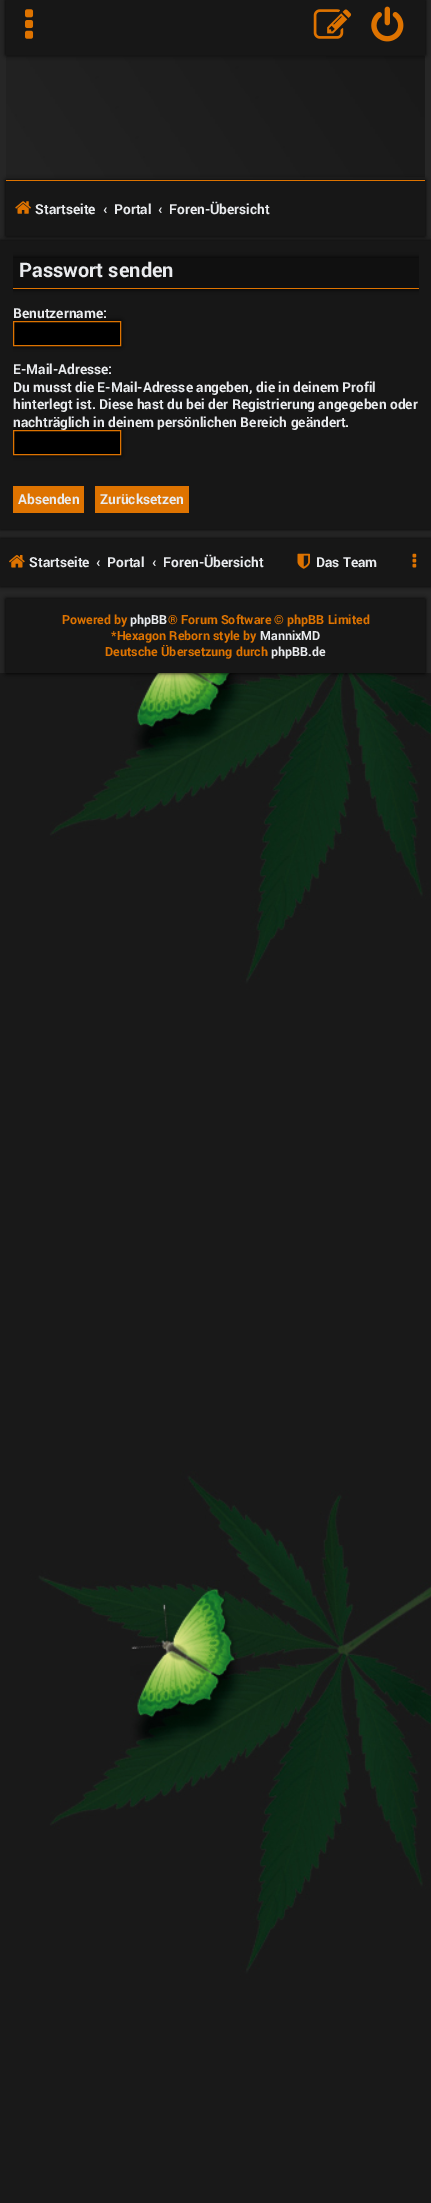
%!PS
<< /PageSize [431 2203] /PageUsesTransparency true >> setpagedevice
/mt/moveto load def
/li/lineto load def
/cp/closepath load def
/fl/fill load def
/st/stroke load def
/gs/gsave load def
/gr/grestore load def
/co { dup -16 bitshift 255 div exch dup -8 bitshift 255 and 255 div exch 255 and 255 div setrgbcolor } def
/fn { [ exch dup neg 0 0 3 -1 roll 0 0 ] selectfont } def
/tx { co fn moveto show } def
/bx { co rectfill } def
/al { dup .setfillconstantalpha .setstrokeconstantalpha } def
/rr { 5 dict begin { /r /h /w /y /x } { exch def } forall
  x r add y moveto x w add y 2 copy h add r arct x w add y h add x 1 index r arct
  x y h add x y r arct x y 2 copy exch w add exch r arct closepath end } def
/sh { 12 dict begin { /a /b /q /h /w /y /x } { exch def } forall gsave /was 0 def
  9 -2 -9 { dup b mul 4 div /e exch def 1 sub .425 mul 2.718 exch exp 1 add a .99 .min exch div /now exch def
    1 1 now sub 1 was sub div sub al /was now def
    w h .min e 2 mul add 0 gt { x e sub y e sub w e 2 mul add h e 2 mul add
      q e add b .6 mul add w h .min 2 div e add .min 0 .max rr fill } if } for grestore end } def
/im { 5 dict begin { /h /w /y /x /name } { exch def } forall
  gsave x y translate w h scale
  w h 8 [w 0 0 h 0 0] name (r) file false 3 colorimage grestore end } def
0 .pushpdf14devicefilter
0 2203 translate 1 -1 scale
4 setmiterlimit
0 0 431 2203 16#FFFFFF bx
(media/1.raw) 0 673 431 1530 im
0 0 431 673 16#262626 bx
(media/5.raw) 6 56 419 122 im
16#000000 co
6 0 419 55 0 2.5 1 sh
6 0 419 55 16#171717 bx
(media/2.raw) 25 9 9 30 im
(media/3.raw) 313 9 39 30 im
(media/4.raw) 371 6 33 36 im
16#000000 co
6 180 419 56 0 2.5 1 sh
6 181 419 55 16#171717 bx
6 180 419 1 16#DE7300 bx
(media/6.raw) 15 201 16 13 im
16#000000 co
0 241 431 288 0 2.5 1 sh
0 241 431 288 16#171717 bx
gs
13 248 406 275 rectclip
16#000000 co
13 258 406 31 0 2.5 1 sh
gr
13 258 406 30 16#101010 bx
13 288 406 1 16#DE7300 bx
gs
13 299 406 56 rectclip
16#000000 co
13 321 108 25 0 2.5 1 sh
gr
16#000000 co
13.5 321.5 mt 120.5 321.5 li 120.5 345.5 li 13.5 345.5 li cp gs fl gr
16#DE7300 co
st
gs
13 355 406 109 rectclip
16#000000 co
13 430 108 25 0 2.5 1 sh
gr
16#000000 co
13.5 430.5 mt 120.5 430.5 li 120.5 454.5 li 13.5 454.5 li cp gs fl gr
16#DE7300 co
st
13 486 71 27 16#DE7300 bx
95 486 94 27 16#DE7300 bx
16#000000 co
0 539 431 47 0 2.5 1 sh
0 539 431 47 16#171717 bx
(media/7.raw) 9 555 16 13 im
(media/8.raw) 297 553 13 16 im
(media/9.raw) 412 553 5 15 im
16#000000 co
6 599 419 74 0 2.5 1 sh
6 599 419 74 16#171717 bx
(Startseite) 35 214 /Roboto-Bold 13.75 16#E9EBEE tx
(‹) 103 214 /Roboto-Bold 13.75 16#E9EBEE tx
(Portal) 114 214 /Roboto-Bold 13.75 16#E9EBEE tx
(‹) 158 214 /Roboto-Bold 13.75 16#E9EBEE tx
(Foren-Übersicht) 169 214 /Roboto-Bold 13.75 16#E9EBEE tx
(Passwort senden) 19 277 /Roboto-Bold 20 16#E9EBEE tx
(Benutzername:) 13 318 /Roboto-Bold 13.75 16#E9EBEE tx
(E-Mail-Adresse:) 13 374 /Roboto-Bold 13.75 16#E9EBEE tx
(Du musst die E-Mail-Adresse angeben, die in deinem Profil) 13 392 /Roboto-Bold 13.75 16#E9EBEE tx
(hinterlegt ist. Diese hast du bei der Registrierung angegeben oder) 13 409 /Roboto-Bold 13.75 16#E9EBEE tx
(nachträglich in deinem persönlichen Bereich geändert.) 13 427 /Roboto-Bold 13.75 16#E9EBEE tx
(Absenden) 18 504 /Roboto-Bold 13.75 16#E9EBEE tx
(Zurücksetzen) 100 504 /Roboto-Bold 13.75 16#E9EBEE tx
(Startseite) 29 567 /Roboto-Bold 13.75 16#E9EBEE tx
(‹) 96 567 /Roboto-Bold 13.75 16#E9EBEE tx
(Portal) 107 567 /Roboto-Bold 13.75 16#E9EBEE tx
(‹) 152 567 /Roboto-Bold 13.75 16#E9EBEE tx
(Foren-Übersicht) 163 567 /Roboto-Bold 13.75 16#E9EBEE tx
(Das Team) 316 567 /Roboto-Bold 13.75 16#E9EBEE tx
(Powered by) 62 624 /Roboto-Bold 12.5 16#DE7300 tx
(phpBB) 130 624 /Roboto-Bold 12.5 16#E9EBEE tx
(® Forum Software © phpBB Limited) 168 624 /Roboto-Bold 12.5 16#DE7300 tx
(*Hexagon Reborn style by) 111 640 /Roboto-Bold 12.5 16#DE7300 tx
(MannixMD) 260 640 /Roboto-Bold 12.5 16#E9EBEE tx
(Deutsche Übersetzung durch) 105 656 /Roboto-Bold 12.5 16#DE7300 tx
(phpBB.de) 271 656 /Roboto-Bold 12.5 16#E9EBEE tx
.poppdf14devicefilter showpage
